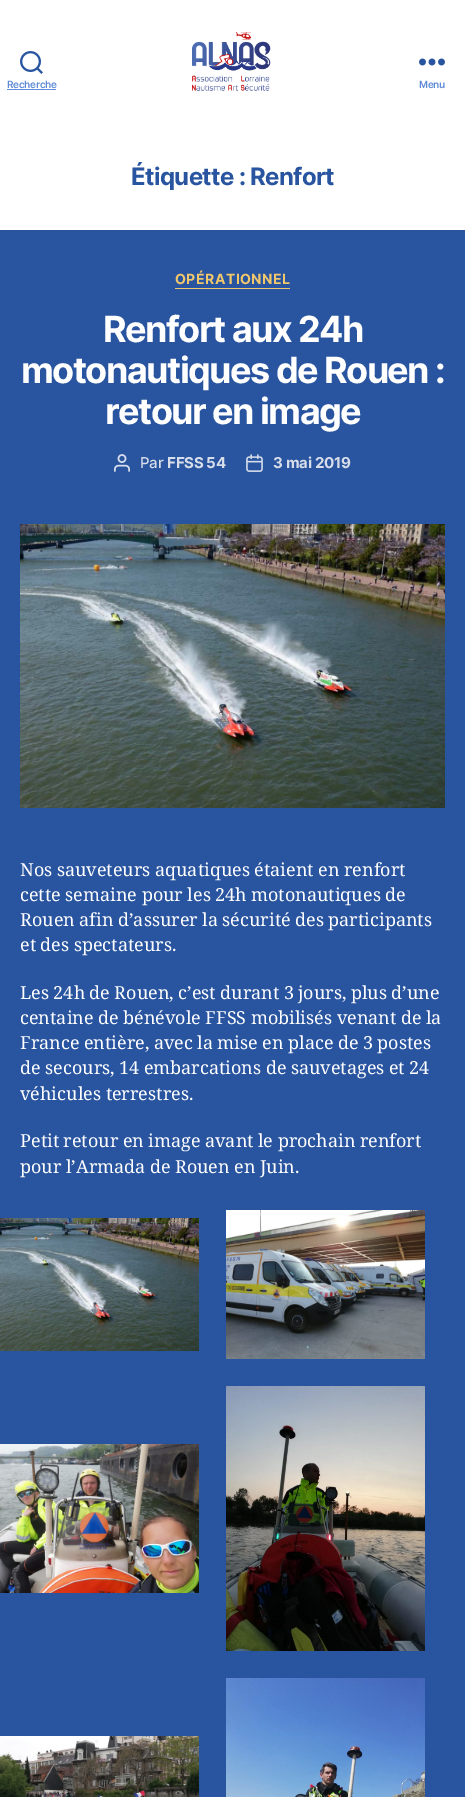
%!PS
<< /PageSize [465 1797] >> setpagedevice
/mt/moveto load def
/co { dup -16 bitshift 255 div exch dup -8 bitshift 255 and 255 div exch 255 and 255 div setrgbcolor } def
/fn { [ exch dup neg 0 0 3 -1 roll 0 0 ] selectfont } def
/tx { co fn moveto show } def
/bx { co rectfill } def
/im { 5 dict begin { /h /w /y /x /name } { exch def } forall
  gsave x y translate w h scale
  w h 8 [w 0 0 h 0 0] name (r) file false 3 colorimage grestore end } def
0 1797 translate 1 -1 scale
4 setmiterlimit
0 0 465 1797 16#2955A0 bx
0 0 465 230 16#FFFFFF bx
(media/1.raw) 20 51 23 23 im
7 89 49 1 16#5F8BD6 bx
(media/2.raw) 192 32 79 59 im
(media/3.raw) 419 58 26 8 im
175 288 115 1 16#F1C76C bx
(media/4.raw) 114 454 16 18 im
(media/5.raw) 246 454 17 18 im
(media/6.raw) 20 524 425 284 im
(media/7.raw) 0 1218 199 133 im
(media/8.raw) 226 1210 199 149 im
(media/9.raw) 0 1444 199 149 im
(media/10.raw) 226 1386 199 265 im
(media/11.raw) 0 1736 199 61 im
(media/12.raw) 226 1678 199 119 im
/Inter-SemiBold 10 fn
16#5F8BD6 co
7 88 mt -.25 0 (Recherche) ashow
419 88 mt -.25 0 (Menu) ashow
/Inter-Bold 24 fn
16#2955A0 co
131 185 mt -.6 0 (Étiquette : Renfort) ashow
/Inter-Bold 14 fn
16#F1C76C co
175 284 mt .5 0 (OPÉRATIONNEL) ashow
/Inter-Bold 36 fn
16#FFFFFF co
103 342 mt -1.5 0 (Renfort aux 24h) ashow
21 383 mt -1.5 0 (motonautiques de Rouen :) ashow
105 424 mt -1.5 0 (retour en image) ashow
/Inter-Medium 15 fn
16#D7DDE9 co
140 468 mt -.25 0 (Par) ashow
/Inter-Bold 15 fn
167 468 mt -.25 0 (FFSS 54) ashow
273 468 mt -.25 0 (3 mai 2019) ashow
/NotoSerif-Regular 18 fn
16#FFFFFF co
20 876 mt -.25 0 32 (Nos sauveteurs aquatiques étaient en renfort) widthshow
20 901 mt -.25 0 32 (cette semaine pour les 24h motonautiques de) widthshow
20 926 mt -.25 0 32 (Rouen afin d’assurer la sécurité des participants) widthshow
20 951 mt -.25 0 32 (et des spectateurs.) widthshow
20 999 mt -.25 0 32 (Les 24h de Rouen, c’est durant 3 jours, plus d’une) widthshow
20 1024 mt -.25 0 32 (centaine de bénévole FFSS mobilisés venant de la) widthshow
20 1049 mt -.25 0 32 (France entière, avec la mise en place de 3 postes) widthshow
20 1074 mt -.25 0 32 (de secours, 14 embarcations de sauvetages et 24) widthshow
(véhicules terrestres.) 20 1100 /NotoSerif-Regular 18 16#FFFFFF tx
20 1147 mt -.25 0 32 (Petit retour en image avant le prochain renfort) widthshow
20 1173 mt -.25 0 32 (pour l’Armada de Rouen en Juin.) widthshow
showpage
